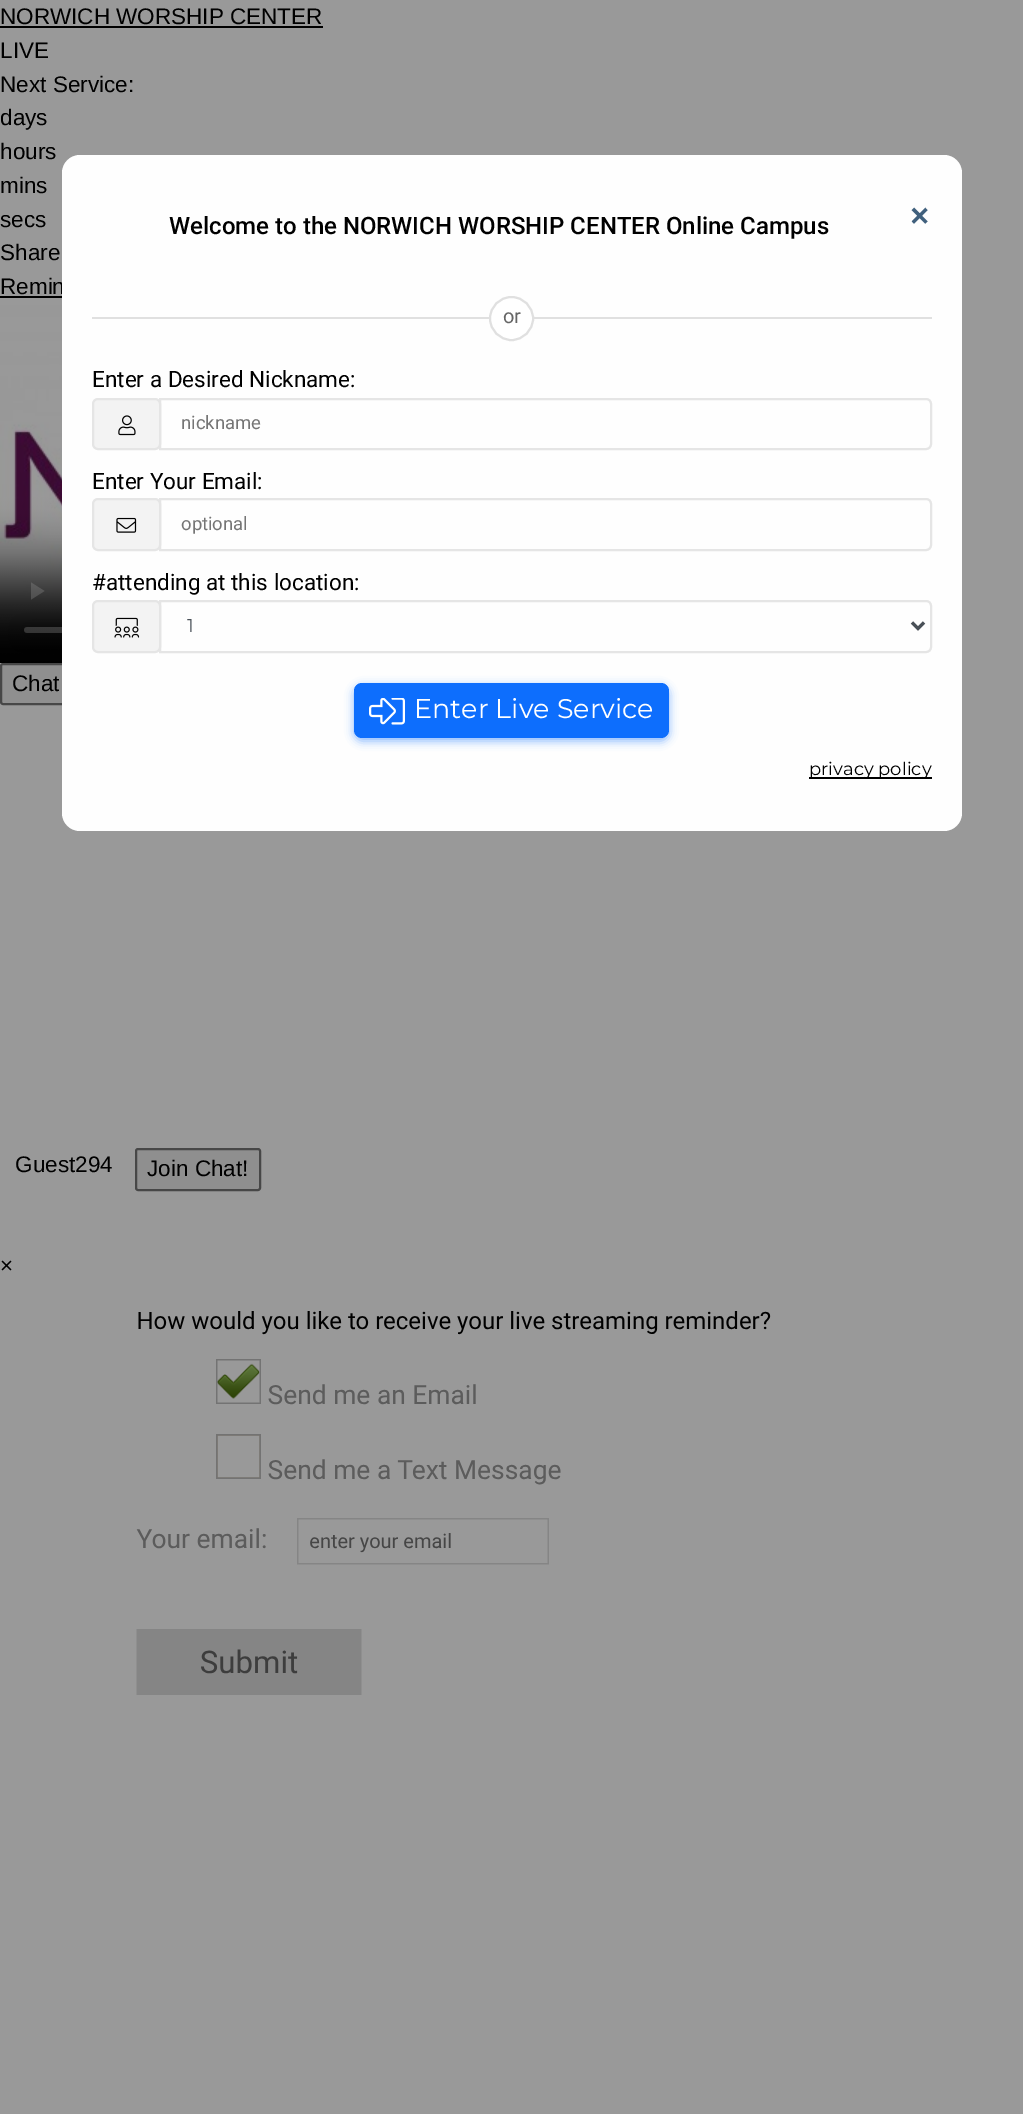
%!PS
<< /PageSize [1023 2114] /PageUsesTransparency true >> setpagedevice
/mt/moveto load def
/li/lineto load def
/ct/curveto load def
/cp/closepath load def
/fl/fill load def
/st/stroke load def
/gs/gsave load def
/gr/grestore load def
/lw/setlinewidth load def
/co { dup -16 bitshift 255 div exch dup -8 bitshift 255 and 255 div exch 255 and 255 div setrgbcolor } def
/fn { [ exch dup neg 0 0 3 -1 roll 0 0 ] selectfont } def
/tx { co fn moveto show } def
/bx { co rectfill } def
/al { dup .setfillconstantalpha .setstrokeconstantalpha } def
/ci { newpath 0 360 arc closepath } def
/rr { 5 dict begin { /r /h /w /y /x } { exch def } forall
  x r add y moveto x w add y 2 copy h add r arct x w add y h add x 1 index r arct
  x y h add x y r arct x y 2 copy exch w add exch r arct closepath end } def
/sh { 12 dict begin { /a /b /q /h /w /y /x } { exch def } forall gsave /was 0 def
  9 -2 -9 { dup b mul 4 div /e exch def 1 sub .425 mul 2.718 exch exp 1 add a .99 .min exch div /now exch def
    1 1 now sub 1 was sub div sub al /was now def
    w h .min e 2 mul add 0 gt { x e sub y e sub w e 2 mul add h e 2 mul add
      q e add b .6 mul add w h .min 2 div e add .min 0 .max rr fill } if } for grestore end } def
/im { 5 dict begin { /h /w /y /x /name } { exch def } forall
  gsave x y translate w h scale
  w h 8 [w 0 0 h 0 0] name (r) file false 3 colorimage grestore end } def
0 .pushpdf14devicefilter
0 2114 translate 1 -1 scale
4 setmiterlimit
0 0 1023 2114 16#999999 bx
0 26 323 2 16#000000 bx
0 296 62 2 16#000000 bx
(media/1.raw) 0 305 62 358 im
16#8F8F8F co
1 664 70 40 2 rr gs fl gr
16#474747 co
2 lw
st
16#8F8F8F co
136 1149 124 41 2 rr gs fl gr
16#474747 co
st
(media/6.raw) 136 1311 635 384 im
(NORWICH WORSHIP CENTER) 0 24 /LiberationSans-Regular 22.5 16#000000 tx
(LIVE) 0 58 /LiberationSans-Regular 22.5 16#000000 tx
(Next Service:) 0 92 /LiberationSans-Regular 22.5 16#000000 tx
(days) 0 125 /LiberationSans-Regular 22.5 16#000000 tx
(hours) 0 159 /LiberationSans-Regular 22.5 16#000000 tx
(mins) 0 193 /LiberationSans-Regular 22.5 16#000000 tx
(secs) 0 227 /LiberationSans-Regular 22.5 16#000000 tx
(Share) 0 260 /LiberationSans-Regular 22.5 16#000000 tx
(Remin) 0 294 /LiberationSans-Regular 22.5 16#000000 tx
(Chat) 12 691 /LiberationSans-Regular 22.5 16#000000 tx
(Guest294) 15 1172 /LiberationSans-Regular 22.5 16#000000 tx
(Join Chat!) 147 1176 /LiberationSans-Regular 22.5 16#000000 tx
16#FEFEFE co
62 155 900 676 18 rr fl
(Welcome to the NORWICH WORSHIP CENTER Online Campus) 169 234 /Roboto-Medium 24 16#000000 tx
(×) 907 231 /Montserrat-Bold 42 16#40607D tx
92 317 840 2 16#E0E0E0 bx
16#FFFFFF co
511.5 318.5 21.5 ci gs fl gr
16#E0E0E0 co
st
(or) 503 323 /Roboto-Regular 20 16#666666 tx
(Enter a Desired Nickname:) 92 387 /Roboto-Regular 22.5 16#000000 tx
16#F3F3F3 co
93 399 67 50 5 rr gs fl gr
16#E5E5E5 co
st
(media/2.raw) 118 415 18 21 im
160 399 mt 926 399 li 929 399 931 401 931 404 ct 931 444 li 931 447 929 449 926 449 ct 160 449 li cp st
(nickname) 181 429 /Roboto-Regular 18.5 16#757575 tx
(Enter Your Email:) 92 489 /Roboto-Regular 22.5 16#000000 tx
16#F3F3F3 co
93 499 67 51 5 rr gs fl gr
16#E5E5E5 co
st
(media/3.raw) 116 517 21 16 im
160 499 mt 926 499 li 929 499 931 501 931 504 ct 931 545 li 931 548 929 550 926 550 ct 160 550 li cp st
(optional) 181 530 /Roboto-Regular 18.5 16#757575 tx
(#attending at this location:) 92 590 /Roboto-Regular 22.5 16#000000 tx
16#F3F3F3 co
93 601 67 51 5 rr gs fl gr
16#E5E5E5 co
st
(media/4.raw) 114 617 26 21 im
160 601 mt 926 601 li 929 601 931 603 931 606 ct 931 647 li 931 650 929 652 926 652 ct 160 652 li cp st
16#495057 co
3 lw
912 622.5 mt 918 628.5 li 924 622.5 li st
(1) 187 632 /Montserrat-Thin 18.5 16#495057 tx
16#0D6EFD co
354 686 315 55 8 4.5 .5 sh
354 683 315 55 8 rr fl
(media/5.raw) 369 698 36 27 im
(Enter Live Service) 414 718 /Montserrat-Thin 27 16#FFFFFF tx
809 777 123 2 16#000000 bx
(privacy policy) 809 775 /Montserrat-Thin 18 16#000000 tx
(×) 0 1273 /LiberationSans-Regular 22.5 16#000000 tx
.poppdf14devicefilter showpage
